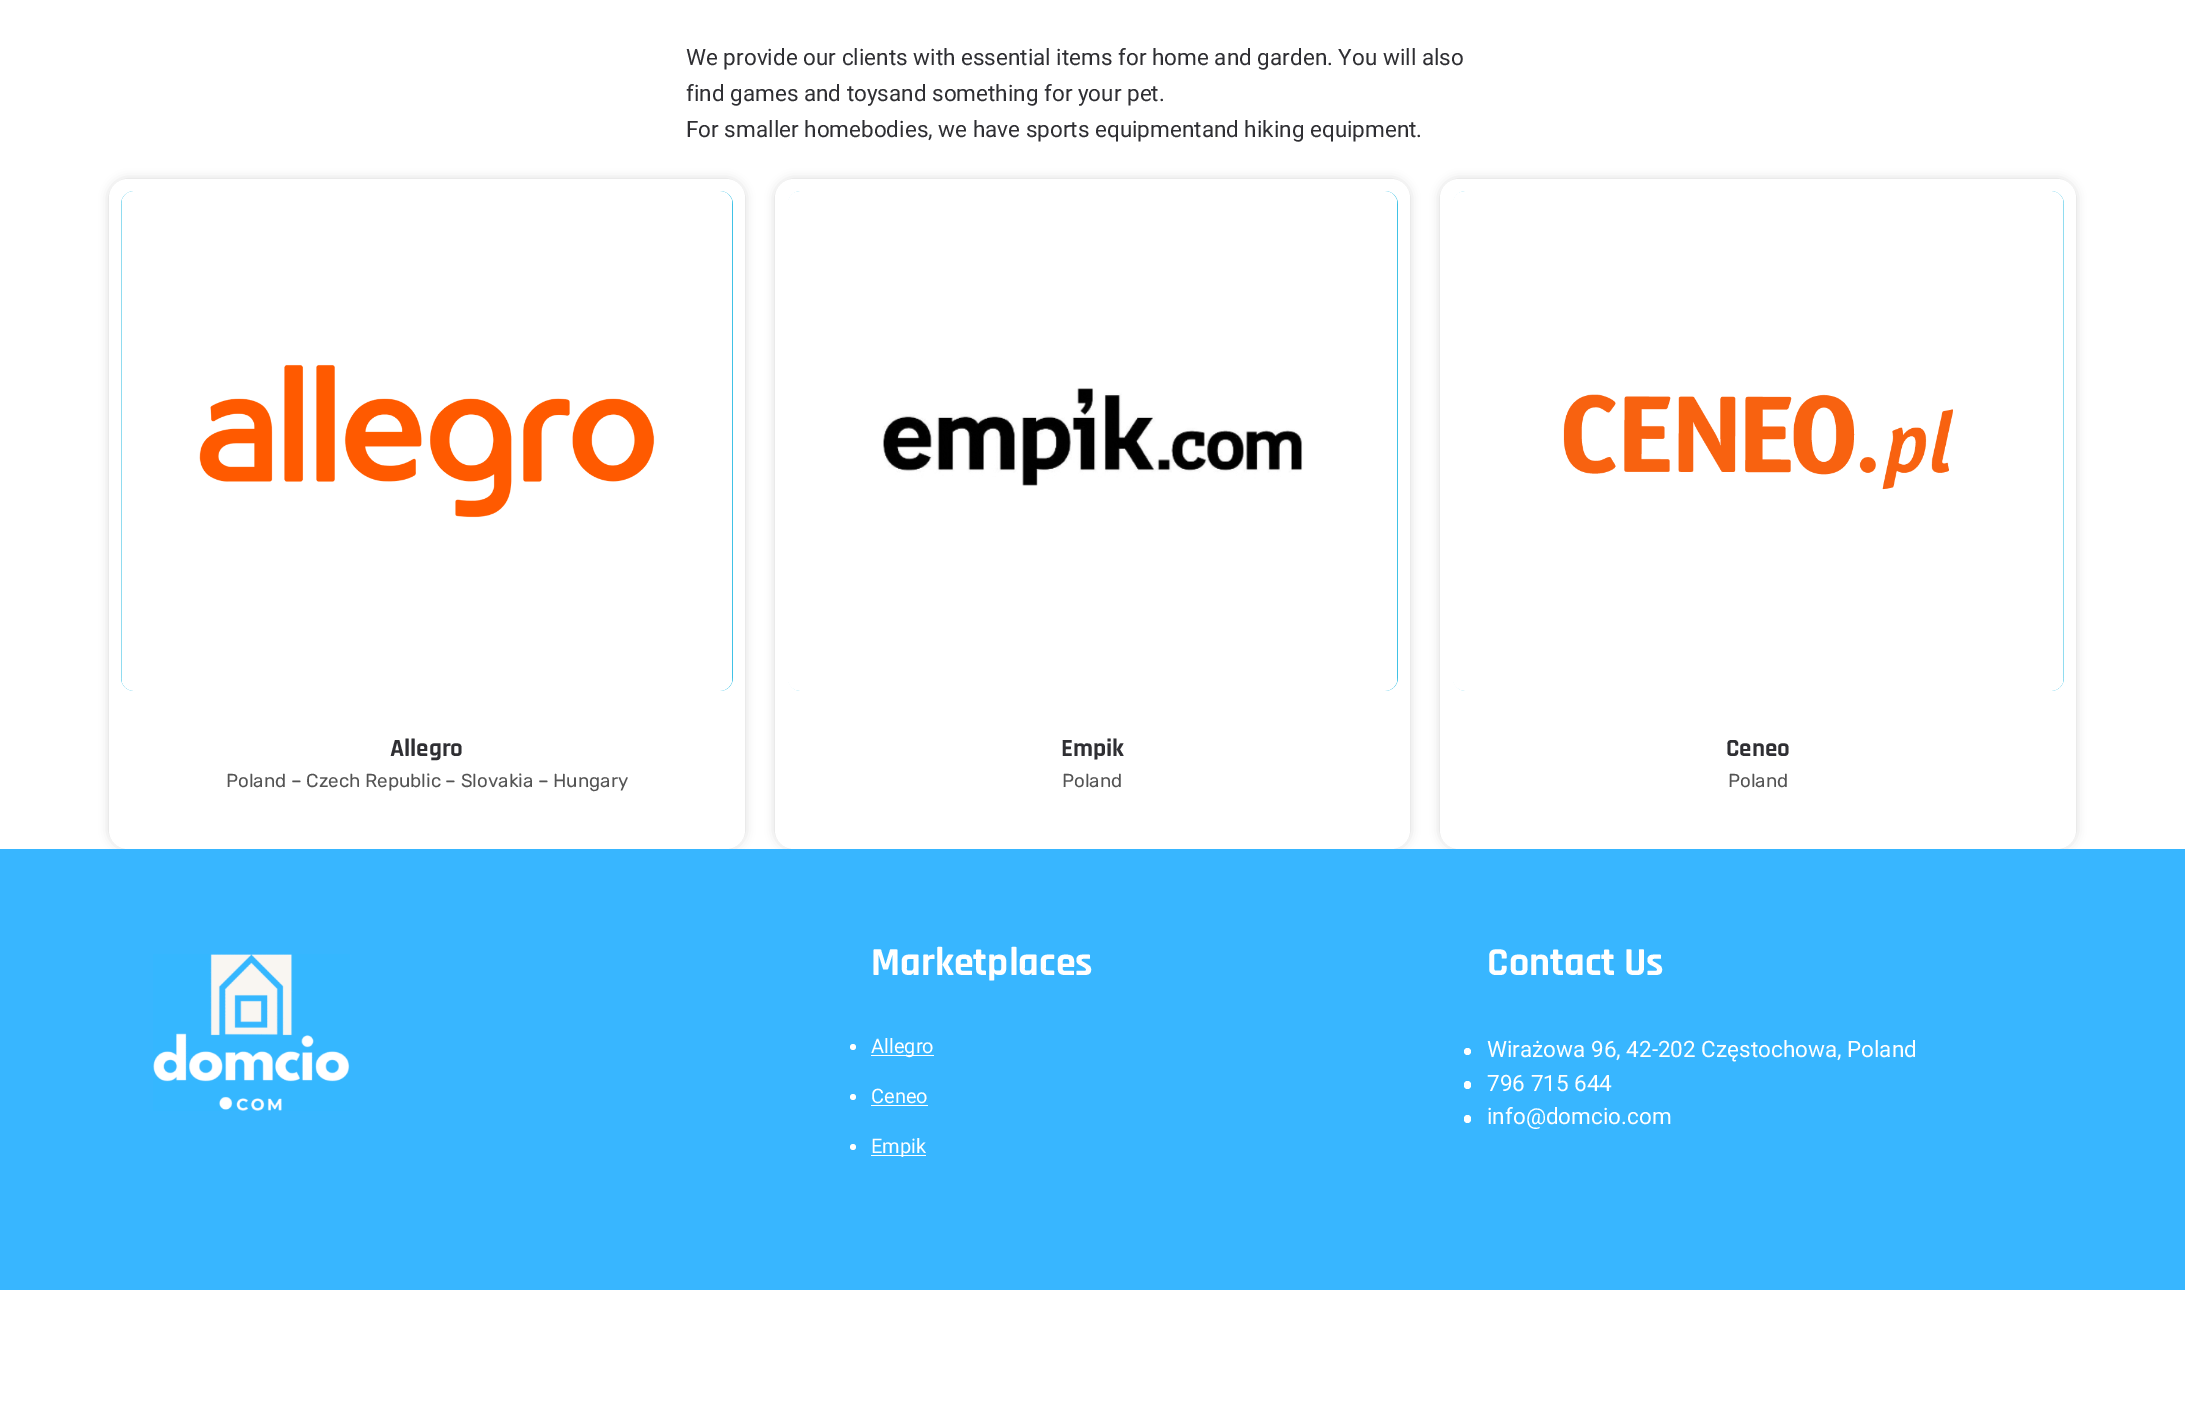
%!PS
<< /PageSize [2185 1415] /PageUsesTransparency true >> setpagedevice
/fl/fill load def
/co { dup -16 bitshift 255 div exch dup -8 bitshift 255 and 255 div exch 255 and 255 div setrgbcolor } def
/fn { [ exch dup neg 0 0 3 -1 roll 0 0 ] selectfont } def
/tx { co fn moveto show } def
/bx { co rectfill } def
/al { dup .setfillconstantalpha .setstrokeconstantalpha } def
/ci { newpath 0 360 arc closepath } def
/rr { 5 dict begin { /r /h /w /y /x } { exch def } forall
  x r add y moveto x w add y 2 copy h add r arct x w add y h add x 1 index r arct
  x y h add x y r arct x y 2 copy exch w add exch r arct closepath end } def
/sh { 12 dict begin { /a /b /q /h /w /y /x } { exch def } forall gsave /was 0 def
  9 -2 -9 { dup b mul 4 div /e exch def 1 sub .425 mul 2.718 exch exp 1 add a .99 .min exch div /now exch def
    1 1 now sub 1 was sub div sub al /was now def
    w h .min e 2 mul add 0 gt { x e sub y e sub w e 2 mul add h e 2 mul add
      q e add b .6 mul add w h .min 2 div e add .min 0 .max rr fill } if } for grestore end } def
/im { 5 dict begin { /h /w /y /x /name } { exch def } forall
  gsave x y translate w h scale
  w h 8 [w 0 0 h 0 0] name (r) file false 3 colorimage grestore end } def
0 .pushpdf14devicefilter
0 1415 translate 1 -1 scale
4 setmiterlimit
0 0 2185 1415 16#FFFFFF bx
16#000000 co
109 179 636 670 19 5 .16 sh
16#FFFFFF co
109 179 636 670 19 rr fl
16#00AEDD co
121 191 612 500 13 rr fl
(media/1.raw) 121 191 612 500 im
16#000000 co
775 179 635 670 19 5 .16 sh
16#FFFFFF co
775 179 635 670 19 rr fl
16#00AEDD co
788 191 610 500 13 rr fl
(media/2.raw) 788 191 610 500 im
16#000000 co
1440 179 636 670 19 5 .16 sh
16#FFFFFF co
1440 179 636 670 19 rr fl
16#00AEDD co
1453 191 611 500 13 rr fl
(media/3.raw) 1453 191 611 500 im
0 849 2185 441 16#38B6FF bx
(media/4.raw) 153 954 197 157 im
16#FFFFFF co
853 1047 3 ci fl
871 1055 63 1 16#FFFFFF bx
853 1097 3 ci fl
871 1105 57 1 16#FFFFFF bx
853 1147 3 ci fl
871 1155 55 1 16#FFFFFF bx
1467.5 1051.5 3.5 ci fl
1464 1081 7 8 3.5 rr fl
1464 1115 7 8 3.5 rr fl
(We provide our clients with essential items for home and garden. You will also) 686 65 /Roboto-Regular 22.5 16#2F2F33 tx
(find games and toysand something for your pet.) 686 101 /Roboto-Regular 22.5 16#2F2F33 tx
(For smaller homebodies, we have sports equipmentand hiking equipment.) 686 137 /Roboto-Regular 22.5 16#2F2F33 tx
(Allegro) 390 756 /Rajdhani-Bold 25 16#2F2F33 tx
(Poland – Czech Republic – Slovakia – Hungary) 226 787 /Rubik-Regular 18.75 16#545454 tx
(Empik) 1061 756 /Rajdhani-Bold 25 16#2F2F33 tx
(Poland) 1062 787 /Rubik-Regular 18.75 16#545454 tx
(Ceneo) 1726 756 /Rajdhani-Bold 25 16#2F2F33 tx
(Poland) 1728 787 /Rubik-Regular 18.75 16#545454 tx
(Marketplaces) 871 975 /Rajdhani-Bold 40 16#FFFFFF tx
(Allegro) 871 1053 /Roboto-Regular 20 16#FFFFFF tx
(Ceneo) 871 1103 /Roboto-Regular 20 16#FFFFFF tx
(Empik) 871 1153 /Roboto-Regular 20 16#FFFFFF tx
(Contact Us) 1487 975 /Rajdhani-Bold 40 16#FFFFFF tx
(Wirażowa 96, 42-202 Częstochowa, Poland) 1487 1057 /Roboto-Regular 22.5 16#FFFFFF tx
(796 715 644) 1487 1091 /Roboto-Regular 22.5 16#FFFFFF tx
(info@domcio.com) 1487 1124 /Roboto-Regular 22.5 16#FFFFFF tx
.poppdf14devicefilter showpage
